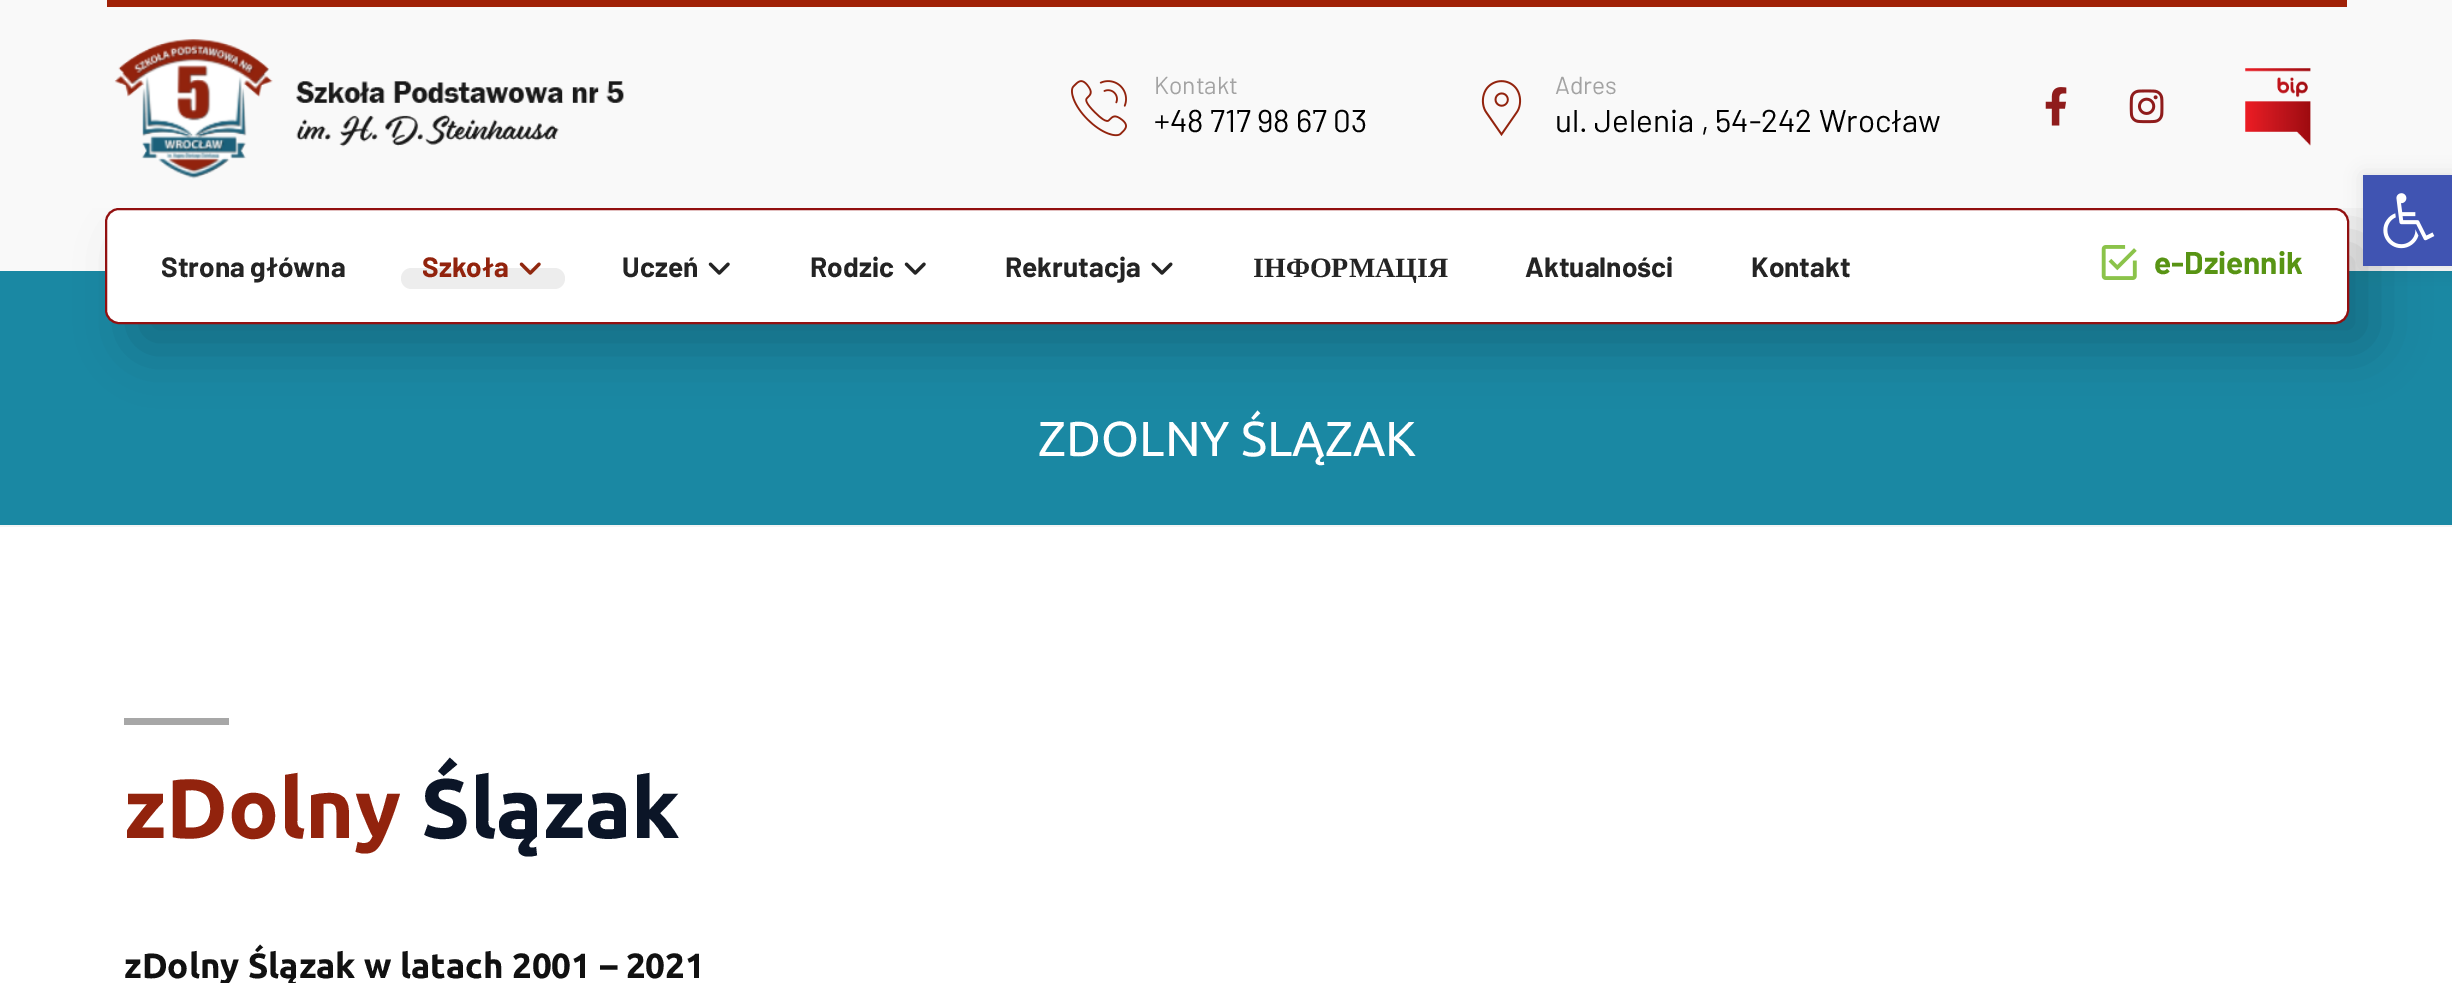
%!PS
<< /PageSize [2452 983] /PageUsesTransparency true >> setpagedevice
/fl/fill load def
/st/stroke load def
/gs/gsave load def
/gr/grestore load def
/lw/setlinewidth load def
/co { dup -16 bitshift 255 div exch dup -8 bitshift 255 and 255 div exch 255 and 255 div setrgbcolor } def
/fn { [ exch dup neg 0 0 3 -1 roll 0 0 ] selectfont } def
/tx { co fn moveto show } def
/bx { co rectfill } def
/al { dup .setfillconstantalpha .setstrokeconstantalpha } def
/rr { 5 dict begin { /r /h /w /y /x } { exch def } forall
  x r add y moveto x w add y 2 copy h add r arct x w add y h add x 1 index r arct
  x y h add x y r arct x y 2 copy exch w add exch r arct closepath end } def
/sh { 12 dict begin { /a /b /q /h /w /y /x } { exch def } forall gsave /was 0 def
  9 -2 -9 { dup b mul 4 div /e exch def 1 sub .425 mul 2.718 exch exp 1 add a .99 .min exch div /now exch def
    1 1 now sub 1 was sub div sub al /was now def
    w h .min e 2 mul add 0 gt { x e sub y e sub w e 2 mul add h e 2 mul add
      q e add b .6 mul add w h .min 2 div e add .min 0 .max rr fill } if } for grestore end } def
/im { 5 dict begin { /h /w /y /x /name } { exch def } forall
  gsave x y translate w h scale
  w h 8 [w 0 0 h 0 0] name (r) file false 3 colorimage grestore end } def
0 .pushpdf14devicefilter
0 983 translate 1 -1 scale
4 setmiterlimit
0 0 2452 983 16#FFFFFF bx
0 208 2452 63 16#F9F9F9 bx
0 271 2452 254 16#1A88A3 bx
16#000000 co
131 235 2244 115 14 26 .18 sh
0 0 2452 208 16#F9F9F9 bx
107 0 2240 7 16#A02107 bx
(media/1.raw) 114 39 510 140 im
(media/2.raw) 1071 80 56 57 im
(media/3.raw) 1481 80 41 56 im
(media/4.raw) 2045 87 22 39 im
(media/5.raw) 2129 89 35 35 im
(media/6.raw) 2245 68 66 78 im
16#FFFFFF co
106 209 2242 114 13 rr gs fl gr
16#921010 co
2 lw
st
16#EDEDED co
401 268 164 21 10.5 rr fl
(media/7.raw) 519 262 22 13 im
(media/8.raw) 708 262 22 13 im
(media/8.raw) 904 262 22 13 im
(media/9.raw) 1151 262 22 13 im
(media/10.raw) 2101 245 36 35 im
0 525 2452 2 16#F4F4F4 bx
124 718 105 7 16#A7A7A7 bx
16#000000 co
2363 175 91 91 0 9 .1 sh
2363 175 89 91 16#4054B2 bx
(media/11.raw) 2383 193 52 56 im
(Kontakt) 1154 94 /Barlow-Regular 24.5 16#A3A3A3 tx
(+48 717 98 67 03) 1154 132 /Barlow-Regular 31.5 16#000000 tx
(Adres) 1555 94 /Barlow-Regular 24.5 16#A3A3A3 tx
(ul. Jelenia , 54-242 Wrocław) 1555 132 /Barlow-Regular 31.5 16#000000 tx
(Strona główna) 161 277 /Barlow-Bold 28 16#242424 tx
(Szkoła) 422 277 /Barlow-Bold 28 16#92230D tx
(Uczeń) 622 277 /Barlow-Bold 28 16#242424 tx
(Rodzic) 810 277 /Barlow-Bold 28 16#242424 tx
(Rekrutacja) 1005 277 /Barlow-Bold 28 16#242424 tx
(ІНФОРМАЦІЯ) 1253 277 /LiberationSerif-Bold 28 16#242424 tx
(Aktualności) 1525 277 /Barlow-Bold 28 16#242424 tx
(Kontakt) 1751 277 /Barlow-Bold 28 16#242424 tx
(e-Dziennik) 2154 274 /Barlow-Bold 31.5 16#589414 tx
(ZDOLNY ŚLĄZAK) 1038 456 /Ubuntu-Regular 49 16#FFFFFF tx
(zDolny) 124 838 /Ubuntu-Bold 84 16#92230D tx
(Ślązak) 421 838 /Ubuntu-Bold 84 16#0B1527 tx
(zDolny Ślązak w latach 2001 – 2021) 124 978 /Ubuntu-Bold 35 16#111111 tx
.poppdf14devicefilter showpage
